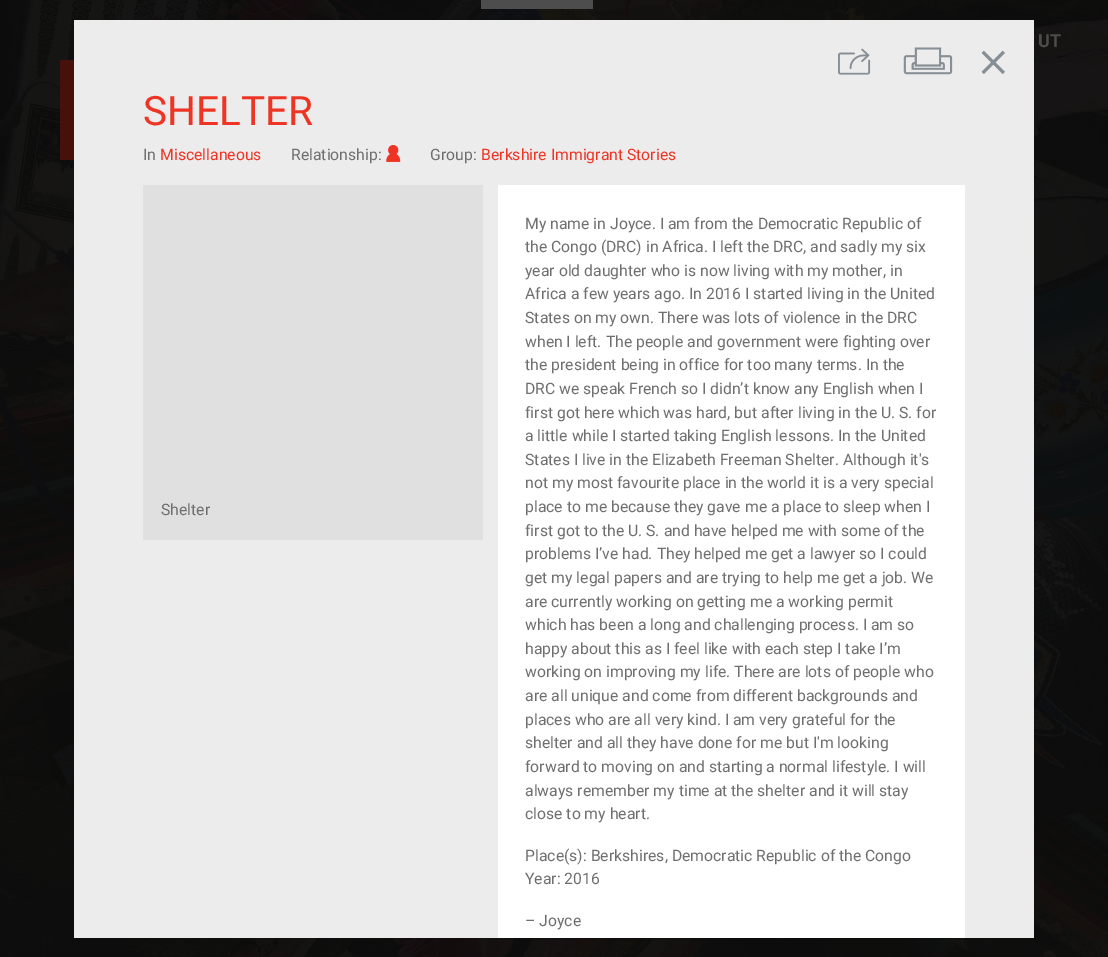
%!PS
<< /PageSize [1108 957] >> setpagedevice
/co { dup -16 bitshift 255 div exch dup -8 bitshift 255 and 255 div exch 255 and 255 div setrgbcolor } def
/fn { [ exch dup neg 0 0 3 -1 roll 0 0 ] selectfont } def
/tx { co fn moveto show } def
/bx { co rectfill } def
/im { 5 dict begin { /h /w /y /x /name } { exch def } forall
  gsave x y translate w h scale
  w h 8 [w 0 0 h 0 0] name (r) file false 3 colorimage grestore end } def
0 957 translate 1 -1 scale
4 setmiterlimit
0 0 1108 957 16#FFFFFF bx
(media/1.raw) 0 0 1108 957 im
481 0 112 9 16#4D4D4D bx
(media/2.raw) 60 60 14 100 im
74 20 960 918 16#ECECEC bx
(media/3.raw) 838 48 33 27 im
(media/4.raw) 903 47 50 28 im
(media/5.raw) 981 50 24 24 im
(media/6.raw) 386 145 15 17 im
143 185 340 355 16#E0E0E0 bx
498 185 467 753 16#FFFFFF bx
(UT) 1038 47 /Roboto-Bold 18 16#4D4D4D tx
(SHELTER) 143 125 /Roboto-Regular 40.5 16#EE3424 tx
(In) 143 160 /Roboto-Regular 15.75 16#6F6F6F tx
(Miscellaneous) 160 160 /Roboto-Regular 15.75 16#EE3424 tx
(Relationship:) 291 160 /Roboto-Regular 15.75 16#6F6F6F tx
(Group:) 430 160 /Roboto-Regular 15.75 16#6F6F6F tx
(Berkshire Immigrant Stories) 481 160 /Roboto-Regular 15.75 16#EE3424 tx
(Shelter) 161 515 /Roboto-Regular 15.75 16#6F6F6F tx
(My name in Joyce. I am from the Democratic Republic of) 525 229 /Roboto-Regular 15.75 16#6F6F6F tx
(the Congo \(DRC\) in Africa. I left the DRC, and sadly my six) 525 252 /Roboto-Regular 15.75 16#6F6F6F tx
(year old daughter who is now living with my mother, in) 525 276 /Roboto-Regular 15.75 16#6F6F6F tx
(Africa a few years ago. In 2016 I started living in the United) 525 299 /Roboto-Regular 15.75 16#6F6F6F tx
(States on my own. There was lots of violence in the DRC) 525 323 /Roboto-Regular 15.75 16#6F6F6F tx
(when I left. The people and government were fighting over) 525 347 /Roboto-Regular 15.75 16#6F6F6F tx
(the president being in office for too many terms. In the) 525 370 /Roboto-Regular 15.75 16#6F6F6F tx
(DRC we speak French so I didn’t know any English when I) 525 394 /Roboto-Regular 15.75 16#6F6F6F tx
(first got here which was hard, but after living in the U. S. for) 525 418 /Roboto-Regular 15.75 16#6F6F6F tx
(a little while I started taking English lessons. In the United) 525 441 /Roboto-Regular 15.75 16#6F6F6F tx
(States I live in the Elizabeth Freeman Shelter. Although it's) 525 465 /Roboto-Regular 15.75 16#6F6F6F tx
(not my most favourite place in the world it is a very special) 525 488 /Roboto-Regular 15.75 16#6F6F6F tx
(place to me because they gave me a place to sleep when I) 525 512 /Roboto-Regular 15.75 16#6F6F6F tx
(first got to the U. S. and have helped me with some of the) 525 536 /Roboto-Regular 15.75 16#6F6F6F tx
(problems I’ve had. They helped me get a lawyer so I could) 525 559 /Roboto-Regular 15.75 16#6F6F6F tx
(get my legal papers and are trying to help me get a job. We) 525 583 /Roboto-Regular 15.75 16#6F6F6F tx
(are currently working on getting me a working permit) 525 607 /Roboto-Regular 15.75 16#6F6F6F tx
(which has been a long and challenging process. I am so) 525 630 /Roboto-Regular 15.75 16#6F6F6F tx
(happy about this as I feel like with each step I take I’m) 525 654 /Roboto-Regular 15.75 16#6F6F6F tx
(working on improving my life. There are lots of people who) 525 677 /Roboto-Regular 15.75 16#6F6F6F tx
(are all unique and come from different backgrounds and) 525 701 /Roboto-Regular 15.75 16#6F6F6F tx
(places who are all very kind. I am very grateful for the) 525 725 /Roboto-Regular 15.75 16#6F6F6F tx
(shelter and all they have done for me but I'm looking) 525 748 /Roboto-Regular 15.75 16#6F6F6F tx
(forward to moving on and starting a normal lifestyle. I will) 525 772 /Roboto-Regular 15.75 16#6F6F6F tx
(always remember my time at the shelter and it will stay) 525 796 /Roboto-Regular 15.75 16#6F6F6F tx
(close to my heart.) 525 819 /Roboto-Regular 15.75 16#6F6F6F tx
(Place\(s\): Berkshires, Democratic Republic of the Congo) 525 861 /Roboto-Regular 15.75 16#6F6F6F tx
(Year: 2016) 525 884 /Roboto-Regular 15.75 16#6F6F6F tx
(– Joyce) 525 926 /Roboto-Regular 15.75 16#6F6F6F tx
showpage
